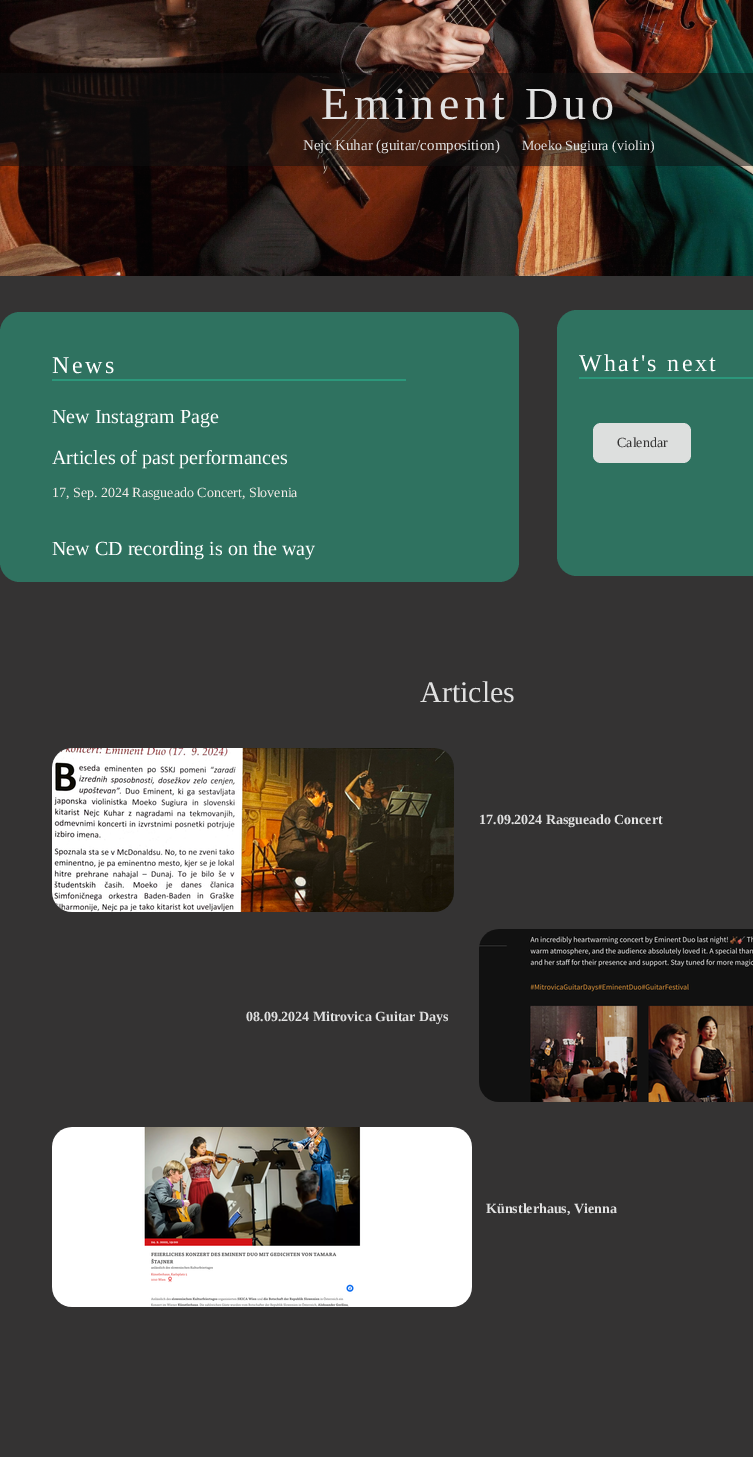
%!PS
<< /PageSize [753 1457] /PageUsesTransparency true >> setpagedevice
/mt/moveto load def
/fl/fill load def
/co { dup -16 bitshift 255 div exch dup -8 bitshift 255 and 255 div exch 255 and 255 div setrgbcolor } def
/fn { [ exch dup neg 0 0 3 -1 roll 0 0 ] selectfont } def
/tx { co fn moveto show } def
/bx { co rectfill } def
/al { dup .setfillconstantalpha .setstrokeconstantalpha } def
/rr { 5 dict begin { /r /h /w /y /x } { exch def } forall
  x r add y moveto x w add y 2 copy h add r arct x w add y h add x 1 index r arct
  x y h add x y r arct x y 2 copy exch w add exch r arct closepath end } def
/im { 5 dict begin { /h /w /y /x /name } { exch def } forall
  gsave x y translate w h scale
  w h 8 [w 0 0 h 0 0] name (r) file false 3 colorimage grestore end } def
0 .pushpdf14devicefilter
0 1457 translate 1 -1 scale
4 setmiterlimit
0 0 753 1457 16#343333 bx
(media/1.raw) 0 0 753 276 im
0.52 al
0 73 753 93 16#0F0F0F bx
1 al
16#2F7260 co
0 312 519 270 20 rr fl
52 379 354 2 16#2C987B bx
16#2F7260 co
557 310 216 266 20 rr fl
579 377 174 2 16#2C977B bx
16#DDDFDE co
593 423 98 40 8 rr fl
(media/2.raw) 52 748 402 164 im
(media/3.raw) 479 929 274 173 im
(media/4.raw) 52 1127 420 180 im
/LiberationSerif-Regular 46 fn
16#E1E1E1 co
321 119 mt 4.6 0 (Eminent Duo) ashow
(Nejc Kuhar \(guitar/composition\)) 303 150 /LiberationSerif-Regular 15 16#E1E1E1 tx
(Moeko Sugiura \(violin\)) 522 150 /LiberationSerif-Regular 14 16#E1E1E1 tx
/LiberationSerif-Regular 24 fn
16#FFFFFF co
52 373 mt 2.4 0 (News) ashow
(New Instagram Page) 52 423 /LiberationSerif-Regular 20 16#FFFFFF tx
(Articles of past performances) 52 464 /LiberationSerif-Regular 20 16#FFFFFF tx
(17, Sep. 2024 Rasgueado Concert, Slovenia) 52 497 /LiberationSerif-Regular 14 16#F4EBE8 tx
(New CD recording is on the way) 52 555 /LiberationSerif-Regular 20 16#FFFFFF tx
/LiberationSerif-Regular 24 fn
579 371 mt 2.4 0 (What's next) ashow
(Calendar) 617 447 /LiberationSerif-Regular 14 16#343333 tx
(Articles) 420 702 /LiberationSerif-Regular 30 16#E1E1E1 tx
(17.09.2024 Rasgueado Concert) 479 824 /LiberationSerif-Bold 14 16#E1E1E1 tx
(08.09.2024 Mitrovica Guitar Days) 246 1021 /LiberationSerif-Bold 14 16#E1E1E1 tx
(Künstlerhaus, Vienna) 486 1213 /LiberationSerif-Bold 14 16#E1E1E1 tx
.poppdf14devicefilter showpage
